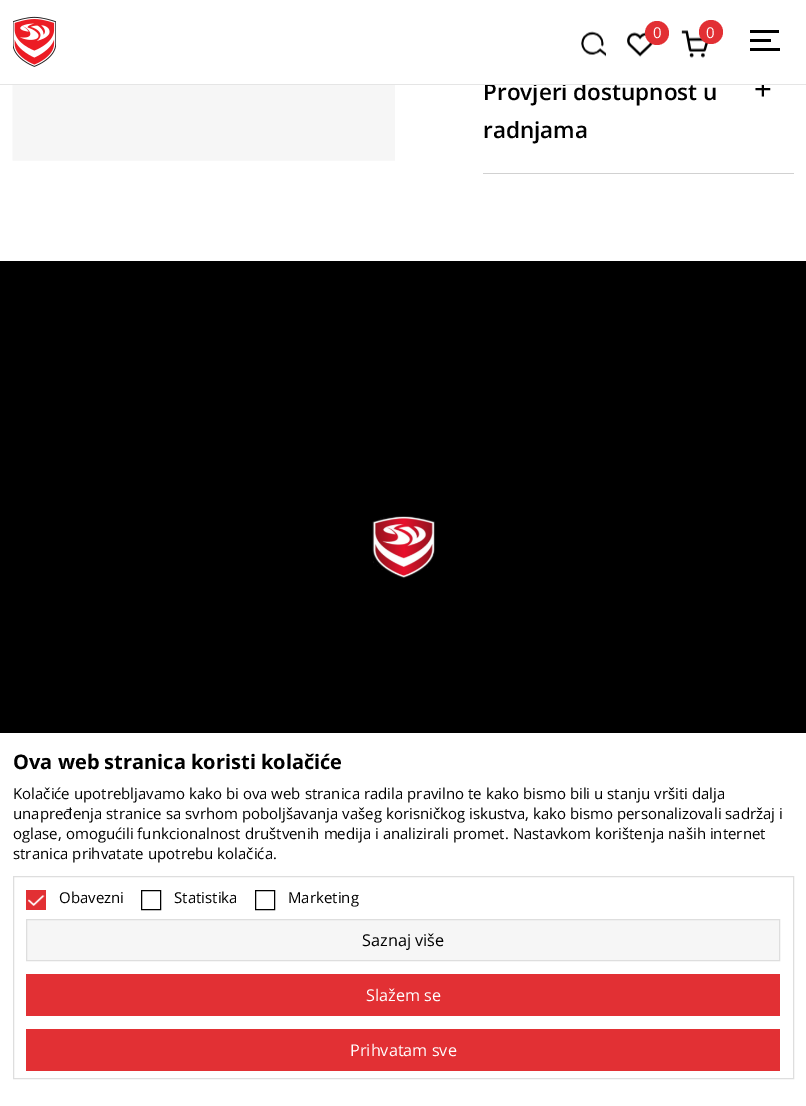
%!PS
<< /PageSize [806 1106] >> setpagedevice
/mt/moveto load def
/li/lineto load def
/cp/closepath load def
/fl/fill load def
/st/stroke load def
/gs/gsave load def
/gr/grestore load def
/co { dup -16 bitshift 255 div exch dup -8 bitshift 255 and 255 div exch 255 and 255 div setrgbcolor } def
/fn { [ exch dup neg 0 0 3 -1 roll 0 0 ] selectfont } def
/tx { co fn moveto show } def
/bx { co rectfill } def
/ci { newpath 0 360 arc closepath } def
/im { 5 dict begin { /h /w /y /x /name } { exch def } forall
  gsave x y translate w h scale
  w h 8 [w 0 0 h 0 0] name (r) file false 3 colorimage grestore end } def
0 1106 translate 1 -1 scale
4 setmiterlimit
0 0 806 1106 16#FFFFFF bx
(media/1.raw) 581 31 25 26 im
(media/2.raw) 13 16 43 51 im
(media/3.raw) 627 32 26 25 im
16#E23034 co
657 33 12 ci fl
(media/4.raw) 681 30 27 28 im
711 32 12 ci fl
750 39 21 3 16#000000 bx
750 30 29 3 16#000000 bx
750 48 30 3 16#000000 bx
(media/5.raw) 12 85 383 76 im
483 173 311 1 16#D1D1D1 bx
0 261 806 472 16#000000 bx
(media/6.raw) 372 516 63 63 im
16#DEDEDE co
13.5 876.5 780 202 rectstroke
26 890 20 20 16#E23034 bx
(media/7.raw) 28 895 17 11 im
16#000000 co
141.5 890.5 19 19 rectstroke
255.5 890.5 19 19 rectstroke
16#F6F6F6 co
26.5 919.5 mt 779.5 919.5 li 779.5 960.5 li 26.5 960.5 li cp gs fl gr
16#DEDEDE co
st
26 974 754 42 16#E23034 bx
26 1029 754 42 16#E23034 bx
(0) 653 38 /OpenSans-Regular 15 16#FFFFFF tx
(0) 706 38 /OpenSans-Regular 15 16#FFFFFF tx
(Provjeri dostupnost u) 483 100 /OpenSans-SemiBold 22.5 16#000000 tx
(+) 754 100 /OpenSans-Medium 31 16#000000 tx
0 84 806 1 16#E5E5E5 bx
485 81 279 3 16#FFFFFF bx
(radnjama) 483 138 /OpenSans-SemiBold 22.5 16#000000 tx
(Ova web stranica koristi kolačiće) 13 769 /OpenSans-Bold 20 16#000000 tx
(Kolačiće upotrebljavamo kako bi ova web stranica radila pravilno te kako bismo bili u stanju vršiti dalja) 13 799 /OpenSans-Regular 15 16#000000 tx
(unapređenja stranice sa svrhom poboljšavanja vašeg korisničkog iskustva, kako bismo personalizovali sadržaj i) 13 819 /OpenSans-Regular 15 16#000000 tx
(oglase, omogućili funkcionalnost društvenih medija i analizirali promet. Nastavkom korištenja naših internet) 13 839 /OpenSans-Regular 15 16#000000 tx
(stranica prihvatate upotrebu kolačića.) 13 859 /OpenSans-Regular 15 16#000000 tx
(Obavezni) 59 903 /OpenSans-Regular 15 16#000000 tx
(Statistika) 174 903 /OpenSans-Regular 15 16#000000 tx
(Marketing) 288 903 /OpenSans-Regular 15 16#000000 tx
(Saznaj više) 362 946 /OpenSans-Regular 16.25 16#000000 tx
(Slažem se) 366 1001 /OpenSans-Regular 16.25 16#FFFFFF tx
(Prihvatam sve) 350 1056 /OpenSans-Regular 16.25 16#FFFFFF tx
showpage
